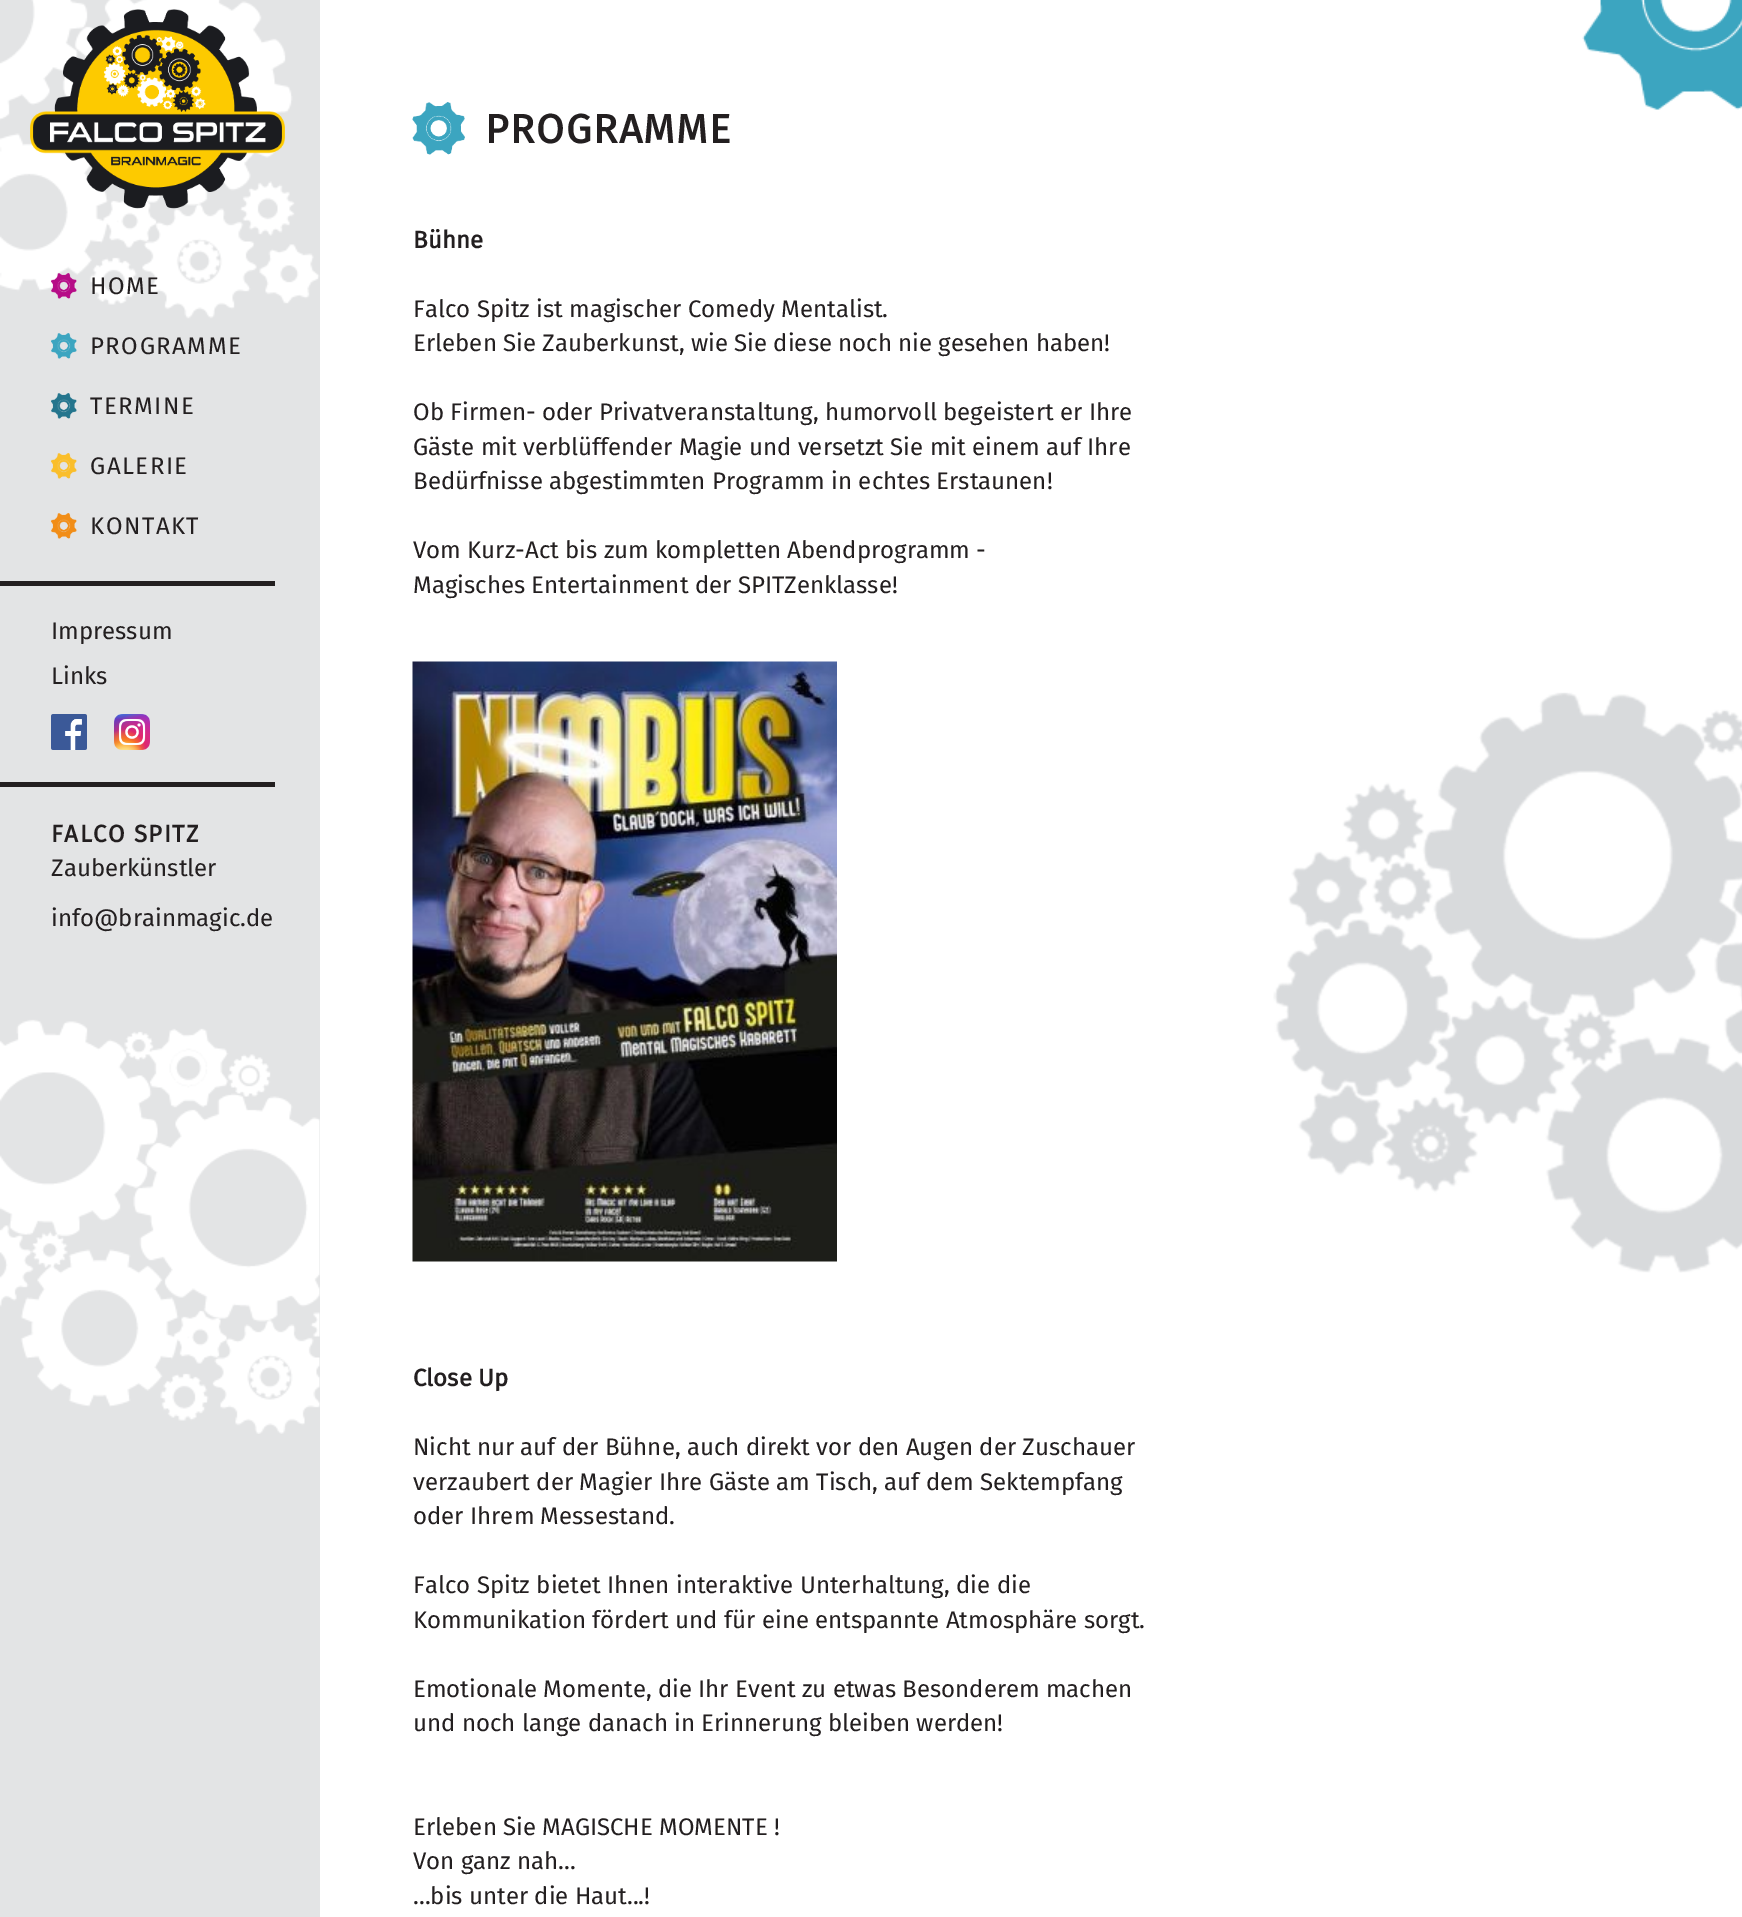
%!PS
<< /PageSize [1742 1917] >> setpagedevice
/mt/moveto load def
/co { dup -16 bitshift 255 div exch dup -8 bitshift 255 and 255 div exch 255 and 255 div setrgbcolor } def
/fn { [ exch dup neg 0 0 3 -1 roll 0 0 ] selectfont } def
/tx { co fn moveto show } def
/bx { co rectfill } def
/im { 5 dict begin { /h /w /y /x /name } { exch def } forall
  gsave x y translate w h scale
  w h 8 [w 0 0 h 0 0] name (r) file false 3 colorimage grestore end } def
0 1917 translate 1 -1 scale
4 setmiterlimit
0 0 1742 1917 16#FFFFFF bx
(media/1.raw) 1273 692 469 581 im
0 0 320 1917 16#E3E4E5 bx
(media/2.raw) 0 0 320 1434 im
(media/3.raw) 30 9 255 200 im
(media/4.raw) 51 273 26 26 im
(media/5.raw) 51 333 26 26 im
(media/6.raw) 51 393 26 26 im
(media/7.raw) 51 453 26 26 im
(media/8.raw) 51 513 26 26 im
0 581 275 5 16#231F20 bx
(media/9.raw) 51 714 36 36 im
(media/10.raw) 114 714 36 36 im
0 782 275 5 16#231F20 bx
(media/11.raw) 1582 0 160 110 im
(media/12.raw) 412 102 53 53 im
(media/13.raw) 412 661 425 601 im
/FiraSans-Regular 24 fn
90 294 mt 1.5 0 (HOME) ashow
90 354 mt 1.5 0 (PROGRAMME) ashow
90 414 mt 1.5 0 (TERMINE) ashow
90 474 mt 1.5 0 (GALERIE) ashow
90 534 mt 1.5 0 (KONTAKT) ashow
(Impressum) 51 639 /FiraSans-Regular 24 16#231F20 tx
(Links) 51 684 /FiraSans-Regular 24 16#231F20 tx
/FiraSans-Bold 24 fn
51 842 mt 1.5 0 (FALCO SPITZ) ashow
(Zauberkünstler) 51 876 /FiraSans-Regular 24 16#231F20 tx
(info@brainmagic.de) 51 926 /FiraSans-Regular 24 16#231F20 tx
/FiraSans-Bold 40.5 fn
485 143 mt 1.5 0 (PROGRAMME) ashow
(Bühne) 413 248 /FiraSans-Bold 24 16#231F20 tx
(Falco Spitz ist magischer Comedy Mentalist.) 413 317 /FiraSans-Regular 24 16#231F20 tx
(Erleben Sie Zauberkunst, wie Sie diese noch nie gesehen haben!) 413 351 /FiraSans-Regular 24 16#231F20 tx
(Ob Firmen- oder Privatveranstaltung, humorvoll begeistert er Ihre) 413 420 /FiraSans-Regular 24 16#231F20 tx
(Gäste mit verblüffender Magie und versetzt Sie mit einem auf Ihre) 413 455 /FiraSans-Regular 24 16#231F20 tx
(Bedürfnisse abgestimmten Programm in echtes Erstaunen!) 413 489 /FiraSans-Regular 24 16#231F20 tx
(Vom Kurz-Act bis zum kompletten Abendprogramm -) 413 558 /FiraSans-Regular 24 16#231F20 tx
(Magisches Entertainment der SPITZenklasse!) 413 593 /FiraSans-Regular 24 16#231F20 tx
(Close Up) 413 1386 /FiraSans-Bold 24 16#231F20 tx
(Nicht nur auf der Bühne, auch direkt vor den Augen der Zuschauer) 413 1455 /FiraSans-Regular 24 16#231F20 tx
(verzaubert der Magier Ihre Gäste am Tisch, auf dem Sektempfang) 413 1490 /FiraSans-Regular 24 16#231F20 tx
(oder Ihrem Messestand.) 413 1524 /FiraSans-Regular 24 16#231F20 tx
(Falco Spitz bietet Ihnen interaktive Unterhaltung, die die) 413 1593 /FiraSans-Regular 24 16#231F20 tx
(Kommunikation fördert und für eine entspannte Atmosphäre sorgt.) 413 1628 /FiraSans-Regular 24 16#231F20 tx
(Emotionale Momente, die Ihr Event zu etwas Besonderem machen) 413 1697 /FiraSans-Regular 24 16#231F20 tx
(und noch lange danach in Erinnerung bleiben werden!) 413 1731 /FiraSans-Regular 24 16#231F20 tx
(Erleben Sie MAGISCHE MOMENTE !) 413 1835 /FiraSans-Regular 24 16#231F20 tx
(Von ganz nah...) 413 1869 /FiraSans-Regular 24 16#231F20 tx
(...bis unter die Haut...!) 413 1904 /FiraSans-Regular 24 16#231F20 tx
showpage
